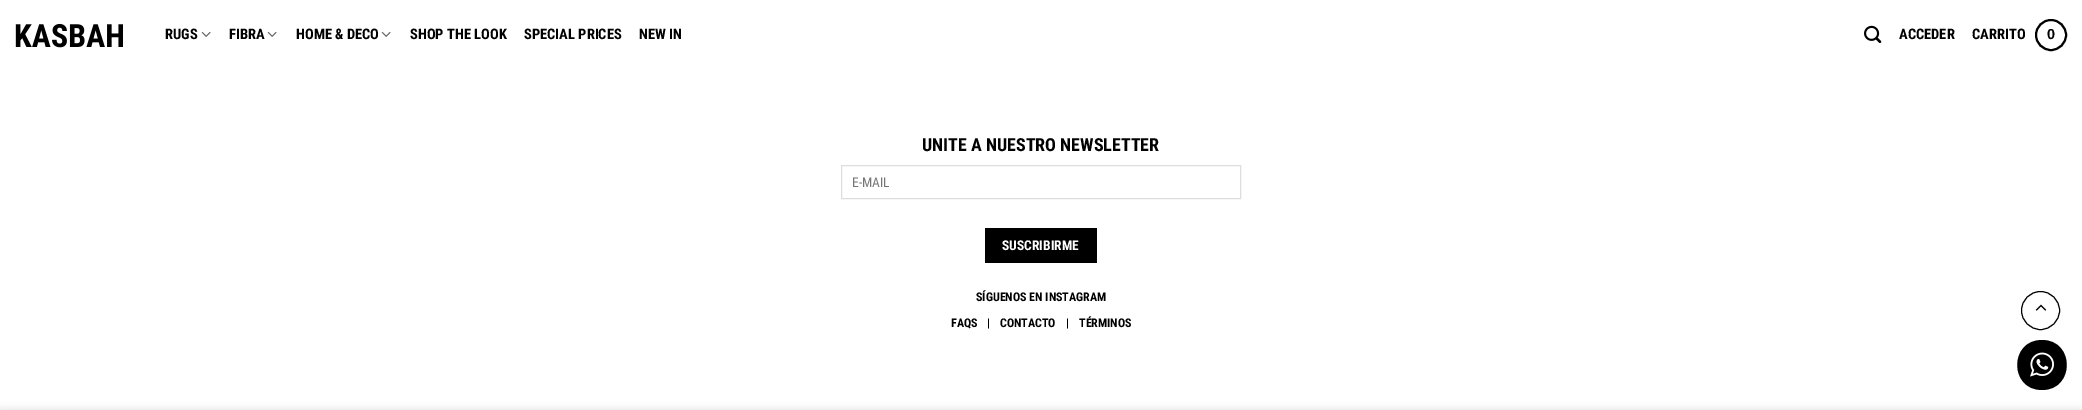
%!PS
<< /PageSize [2082 410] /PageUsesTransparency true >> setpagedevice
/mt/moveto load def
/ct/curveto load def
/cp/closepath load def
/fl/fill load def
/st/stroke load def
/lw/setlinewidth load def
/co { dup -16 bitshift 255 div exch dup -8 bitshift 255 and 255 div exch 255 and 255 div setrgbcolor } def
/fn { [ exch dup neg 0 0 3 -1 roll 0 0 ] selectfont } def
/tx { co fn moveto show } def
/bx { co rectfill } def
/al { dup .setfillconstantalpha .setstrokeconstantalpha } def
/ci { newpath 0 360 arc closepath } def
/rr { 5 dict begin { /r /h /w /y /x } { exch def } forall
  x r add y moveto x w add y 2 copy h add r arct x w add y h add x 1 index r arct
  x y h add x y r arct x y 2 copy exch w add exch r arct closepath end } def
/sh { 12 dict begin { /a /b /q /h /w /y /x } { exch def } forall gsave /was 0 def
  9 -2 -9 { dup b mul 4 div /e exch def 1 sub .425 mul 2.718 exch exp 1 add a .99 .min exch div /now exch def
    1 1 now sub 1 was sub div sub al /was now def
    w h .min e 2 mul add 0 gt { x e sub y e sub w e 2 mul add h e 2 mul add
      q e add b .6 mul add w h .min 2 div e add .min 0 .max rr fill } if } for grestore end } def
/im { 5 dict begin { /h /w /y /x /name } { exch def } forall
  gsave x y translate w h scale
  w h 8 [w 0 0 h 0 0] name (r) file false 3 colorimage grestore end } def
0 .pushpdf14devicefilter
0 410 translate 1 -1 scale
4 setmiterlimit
0 0 2082 410 16#FFFFFF bx
(media/1.raw) 15 23 108 25 im
(media/2.raw) 201 31 10 6 im
(media/2.raw) 267 31 10 6 im
(media/2.raw) 381 31 10 6 im
(media/3.raw) 1864 25 18 18 im
16#000000 co
2 lw
2051 35 15 ci st
16#DDDDDD co
1 lw
841.5 165.5 399 33 rectstroke
985 228 112 35 16#000000 bx
2040.5 310.5 19 ci st
(media/4.raw) 2035 304 12 7 im
2042 340 mt 2075 340 2075 390 2042 390 ct 2009 390 2009 340 2042 340 ct cp fl
(media/5.raw) 2030 352 24 25 im
0 410 2082 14 0 4.5 .14 sh
(RUGS) 165 39 /RobotoCondensed-Bold 14.5 16#000000 tx
(FIBRA) 229 39 /RobotoCondensed-Bold 14.5 16#000000 tx
(HOME & DECO) 296 39 /RobotoCondensed-Bold 14.5 16#000000 tx
(SHOP THE LOOK) 410 39 /RobotoCondensed-Bold 14.5 16#000000 tx
(SPECIAL PRICES) 524 39 /RobotoCondensed-Bold 14.5 16#000000 tx
(NEW IN) 639 39 /RobotoCondensed-Bold 14.5 16#000000 tx
(ACCEDER) 1899 39 /RobotoCondensed-Bold 14.5 16#000000 tx
(CARRITO) 1972 39 /RobotoCondensed-Bold 14.5 16#000000 tx
(0) 2047 39 /LiberationSans-Bold 14.5 16#000000 tx
(UNITE A NUESTRO NEWSLETTER) 922 151 /RobotoCondensed-Bold 18 16#000000 tx
(E-MAIL) 852 187 /RobotoCondensed-Regular 13.5 16#757575 tx
(SUSCRIBIRME) 1002 250 /RobotoCondensed-Bold 13.5 16#FFFFFF tx
(SÍGUENOS EN INSTAGRAM) 976 301 /RobotoCondensed-Bold 12 16#000000 tx
(FAQS) 951 327 /RobotoCondensed-Bold 12 16#000000 tx
(|) 987 327 /RobotoCondensed-Bold 12 16#000000 tx
(CONTACTO) 1000 327 /RobotoCondensed-Bold 12 16#000000 tx
(|) 1066 327 /RobotoCondensed-Bold 12 16#000000 tx
(TÉRMINOS) 1079 327 /RobotoCondensed-Bold 12 16#000000 tx
.poppdf14devicefilter showpage
